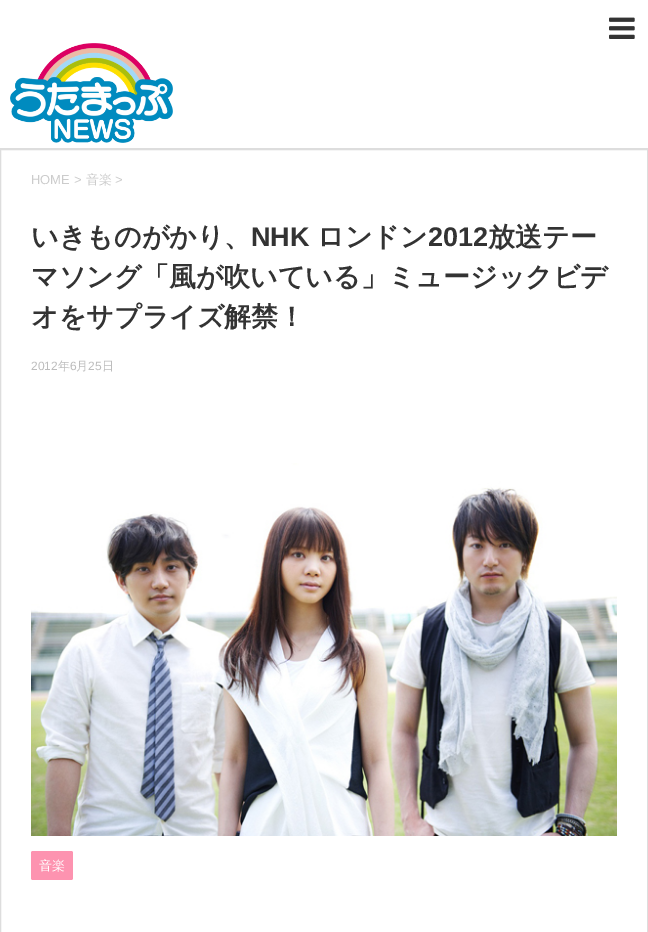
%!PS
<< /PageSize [648 932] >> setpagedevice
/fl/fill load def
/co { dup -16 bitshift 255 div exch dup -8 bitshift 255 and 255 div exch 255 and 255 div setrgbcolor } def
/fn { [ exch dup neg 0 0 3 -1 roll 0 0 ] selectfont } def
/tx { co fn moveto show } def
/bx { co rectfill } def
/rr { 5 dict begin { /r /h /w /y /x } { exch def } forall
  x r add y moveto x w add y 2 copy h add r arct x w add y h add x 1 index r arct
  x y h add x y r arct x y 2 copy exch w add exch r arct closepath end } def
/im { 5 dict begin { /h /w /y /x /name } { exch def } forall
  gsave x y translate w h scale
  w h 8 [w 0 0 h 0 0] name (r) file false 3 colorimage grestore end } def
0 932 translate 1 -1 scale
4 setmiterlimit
0 0 648 932 16#FFFFFF bx
0 148 648 1 16#DDDDDD bx
(media/1.raw) 609 17 26 22 im
(media/2.raw) 10 43 163 100 im
.5 149.5 647 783 rectstroke
(media/3.raw) 31 463 586 373 im
16#FD93B0 co
31 851 42 29 2 rr fl
(HOME >) 31 184 /LiberationSans-Regular 13 16#CCCCCC tx
(音楽) 86 184 /WenQuanYiZenHei-Medium 13 16#CCCCCC tx
(>) 115 184 /LiberationSans-Regular 13 16#CCCCCC tx
(いきものがかり、) 31 246 /WenQuanYiZenHei-Bold 27 16#333333 tx
(NHK) 251 246 /LiberationSans-Bold 27 16#333333 tx
(ロンドン) 317 246 /WenQuanYiZenHei-Bold 27 16#333333 tx
(2012) 428 246 /LiberationSans-Bold 27 16#333333 tx
(放送テー) 488 246 /WenQuanYiZenHei-Bold 27 16#333333 tx
(マソング「風が吹いている」ミュージックビデ) 31 286 /WenQuanYiZenHei-Bold 27 16#333333 tx
(オをサプライズ解禁！) 31 326 /WenQuanYiZenHei-Bold 27 16#333333 tx
(2012) 31 370 /LiberationSans-Regular 12 16#BDBDBD tx
(年) 58 370 /WenQuanYiZenHei-Medium 12 16#BDBDBD tx
(6) 70 370 /LiberationSans-Regular 12 16#BDBDBD tx
(月) 76 370 /WenQuanYiZenHei-Medium 12 16#BDBDBD tx
(25) 88 370 /LiberationSans-Regular 12 16#BDBDBD tx
(日) 102 370 /WenQuanYiZenHei-Medium 12 16#BDBDBD tx
(音楽) 39 870 /WenQuanYiZenHei-Medium 13 16#FFFFFF tx
showpage
